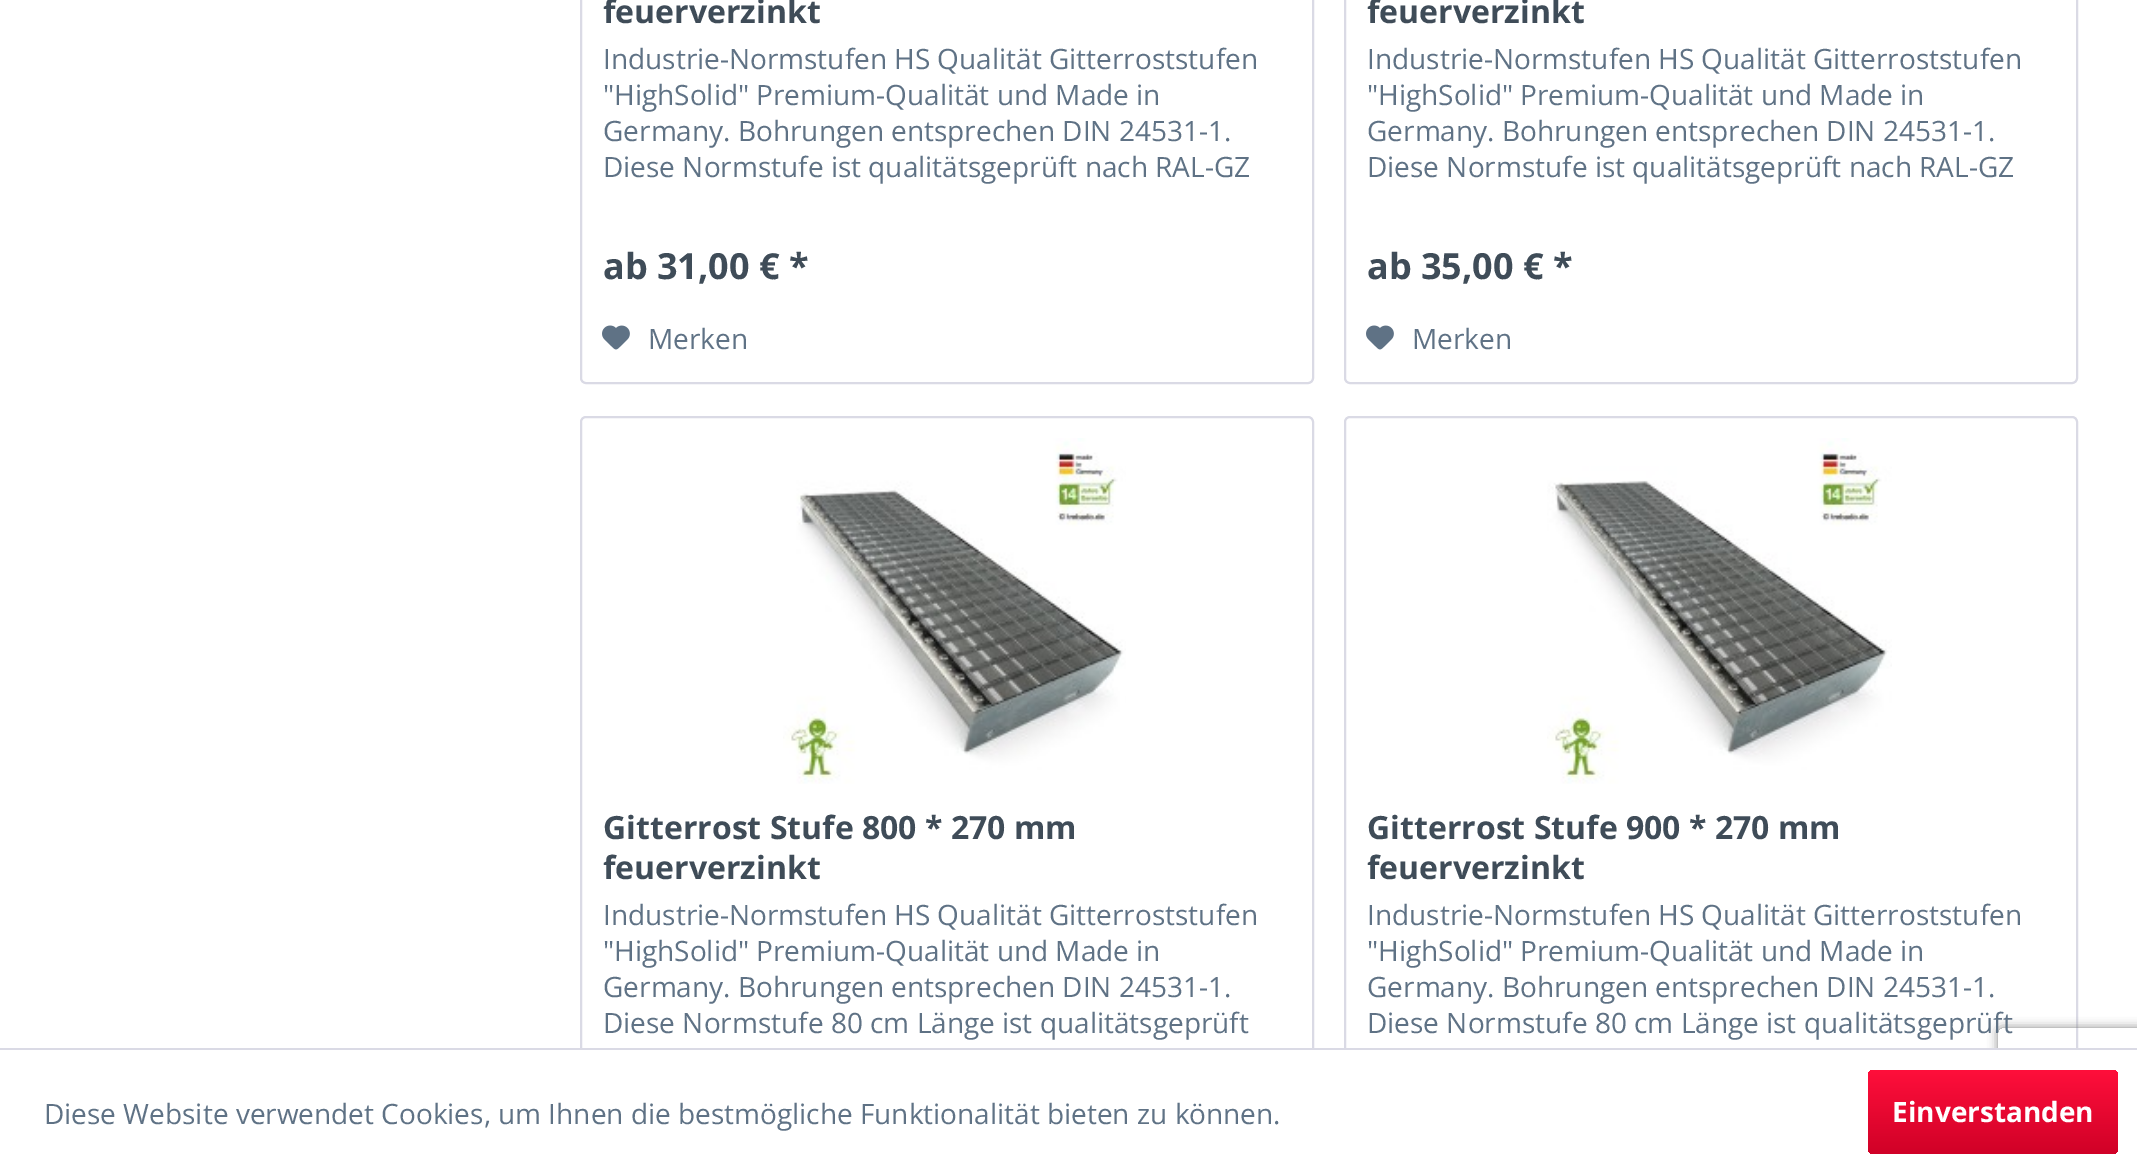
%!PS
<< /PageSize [2137 1175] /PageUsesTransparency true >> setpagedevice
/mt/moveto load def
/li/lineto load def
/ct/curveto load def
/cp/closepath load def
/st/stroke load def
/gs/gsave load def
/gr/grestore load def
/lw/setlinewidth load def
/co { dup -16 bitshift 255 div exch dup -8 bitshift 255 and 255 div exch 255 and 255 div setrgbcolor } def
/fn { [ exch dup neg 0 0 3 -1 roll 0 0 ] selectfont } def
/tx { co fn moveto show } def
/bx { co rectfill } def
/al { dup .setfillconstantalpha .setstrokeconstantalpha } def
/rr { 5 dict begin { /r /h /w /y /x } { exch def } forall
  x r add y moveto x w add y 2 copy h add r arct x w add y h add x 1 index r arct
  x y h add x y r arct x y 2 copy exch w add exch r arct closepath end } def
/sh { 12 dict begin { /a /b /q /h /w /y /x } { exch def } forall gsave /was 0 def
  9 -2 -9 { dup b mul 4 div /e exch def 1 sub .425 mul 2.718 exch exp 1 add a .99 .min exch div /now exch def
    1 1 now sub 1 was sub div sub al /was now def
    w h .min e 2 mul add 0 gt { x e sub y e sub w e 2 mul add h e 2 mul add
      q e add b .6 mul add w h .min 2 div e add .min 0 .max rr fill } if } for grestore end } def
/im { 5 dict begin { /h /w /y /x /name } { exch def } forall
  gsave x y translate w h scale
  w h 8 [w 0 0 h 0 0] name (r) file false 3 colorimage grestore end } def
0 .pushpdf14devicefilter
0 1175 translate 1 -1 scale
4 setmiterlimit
0 0 2137 1175 16#FFFFFF bx
16#DADAE5 co
2 lw
581 -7 732 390 5 rr st
(media/1.raw) 602 325 28 25 im
1345 -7 732 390 5 rr st
(media/1.raw) 1366 325 28 25 im
581 417 732 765 5 rr st
(media/2.raw) 783 438 343 346 im
1345 417 732 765 5 rr st
(media/3.raw) 1547 438 345 346 im
gs
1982 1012 mt 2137 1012 li 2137 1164 li 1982 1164 li cp 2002 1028 mt 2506 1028 li 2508 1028 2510 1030 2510 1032 ct 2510 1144 li 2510 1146 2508 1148 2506 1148 ct 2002 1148 li 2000 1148 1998 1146 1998 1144 ct 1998 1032 li 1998 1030 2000 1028 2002 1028 ct cp eoclip newpath
16#808080 co
1998 1028 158 120 4 5 1 sh
gr
580 1050 1557 125 16#FFFFFF bx
0 1048 2137 2 16#DADAE5 bx
gs 1868 1070 250 84 6 rr clip newpath
<< /ShadingType 2 /ColorSpace /DeviceRGB /Coords [1993 1070 1993 1154] /Extend [true true] /Function << /FunctionType 2 /Domain [0 1] /C0 [1 .059 .231] /C1 [.816 .004 .153] /N 1 >> >> shfill gr
(feuerverzinkt) 603 23 /OpenSans-Bold 32 16#3F4C58 tx
(Industrie-Normstufen HS Qualität Gitterroststufen) 603 69 /OpenSans-Regular 28 16#5F7285 tx
("HighSolid" Premium-Qualität und Made in) 603 105 /OpenSans-Regular 28 16#5F7285 tx
(Germany. Bohrungen entsprechen DIN 24531-1.) 603 141 /OpenSans-Regular 28 16#5F7285 tx
(Diese Normstufe ist qualitätsgeprüft nach RAL-GZ) 603 177 /OpenSans-Regular 28 16#5F7285 tx
(ab 31,00 € *) 603 279 /OpenSans-Bold 36 16#3F4C58 tx
(Merken) 648 349 /OpenSans-Regular 28 16#5F7285 tx
(feuerverzinkt) 1367 23 /OpenSans-Bold 32 16#3F4C58 tx
(Industrie-Normstufen HS Qualität Gitterroststufen) 1367 69 /OpenSans-Regular 28 16#5F7285 tx
("HighSolid" Premium-Qualität und Made in) 1367 105 /OpenSans-Regular 28 16#5F7285 tx
(Germany. Bohrungen entsprechen DIN 24531-1.) 1367 141 /OpenSans-Regular 28 16#5F7285 tx
(Diese Normstufe ist qualitätsgeprüft nach RAL-GZ) 1367 177 /OpenSans-Regular 28 16#5F7285 tx
(ab 35,00 € *) 1367 279 /OpenSans-Bold 36 16#3F4C58 tx
(Merken) 1412 349 /OpenSans-Regular 28 16#5F7285 tx
(Gitterrost Stufe 800 * 270 mm) 603 839 /OpenSans-Bold 32 16#3F4C58 tx
(feuerverzinkt) 603 879 /OpenSans-Bold 32 16#3F4C58 tx
(Industrie-Normstufen HS Qualität Gitterroststufen) 603 925 /OpenSans-Regular 28 16#5F7285 tx
("HighSolid" Premium-Qualität und Made in) 603 961 /OpenSans-Regular 28 16#5F7285 tx
(Germany. Bohrungen entsprechen DIN 24531-1.) 603 997 /OpenSans-Regular 28 16#5F7285 tx
(Diese Normstufe 80 cm Länge ist qualitätsgeprüft) 603 1033 /OpenSans-Regular 28 16#5F7285 tx
(Gitterrost Stufe 900 * 270 mm) 1367 839 /OpenSans-Bold 32 16#3F4C58 tx
(feuerverzinkt) 1367 879 /OpenSans-Bold 32 16#3F4C58 tx
(Industrie-Normstufen HS Qualität Gitterroststufen) 1367 925 /OpenSans-Regular 28 16#5F7285 tx
("HighSolid" Premium-Qualität und Made in) 1367 961 /OpenSans-Regular 28 16#5F7285 tx
(Germany. Bohrungen entsprechen DIN 24531-1.) 1367 997 /OpenSans-Regular 28 16#5F7285 tx
(Diese Normstufe 80 cm Länge ist qualitätsgeprüft) 1367 1033 /OpenSans-Regular 28 16#5F7285 tx
(Diese Website verwendet Cookies, um Ihnen die bestmögliche Funktionalität bieten zu können.) 44 1124 /OpenSans-Regular 28 16#5F7285 tx
(Einverstanden) 1892 1122 /OpenSans-Bold 28 16#FFFFFF tx
.poppdf14devicefilter showpage
